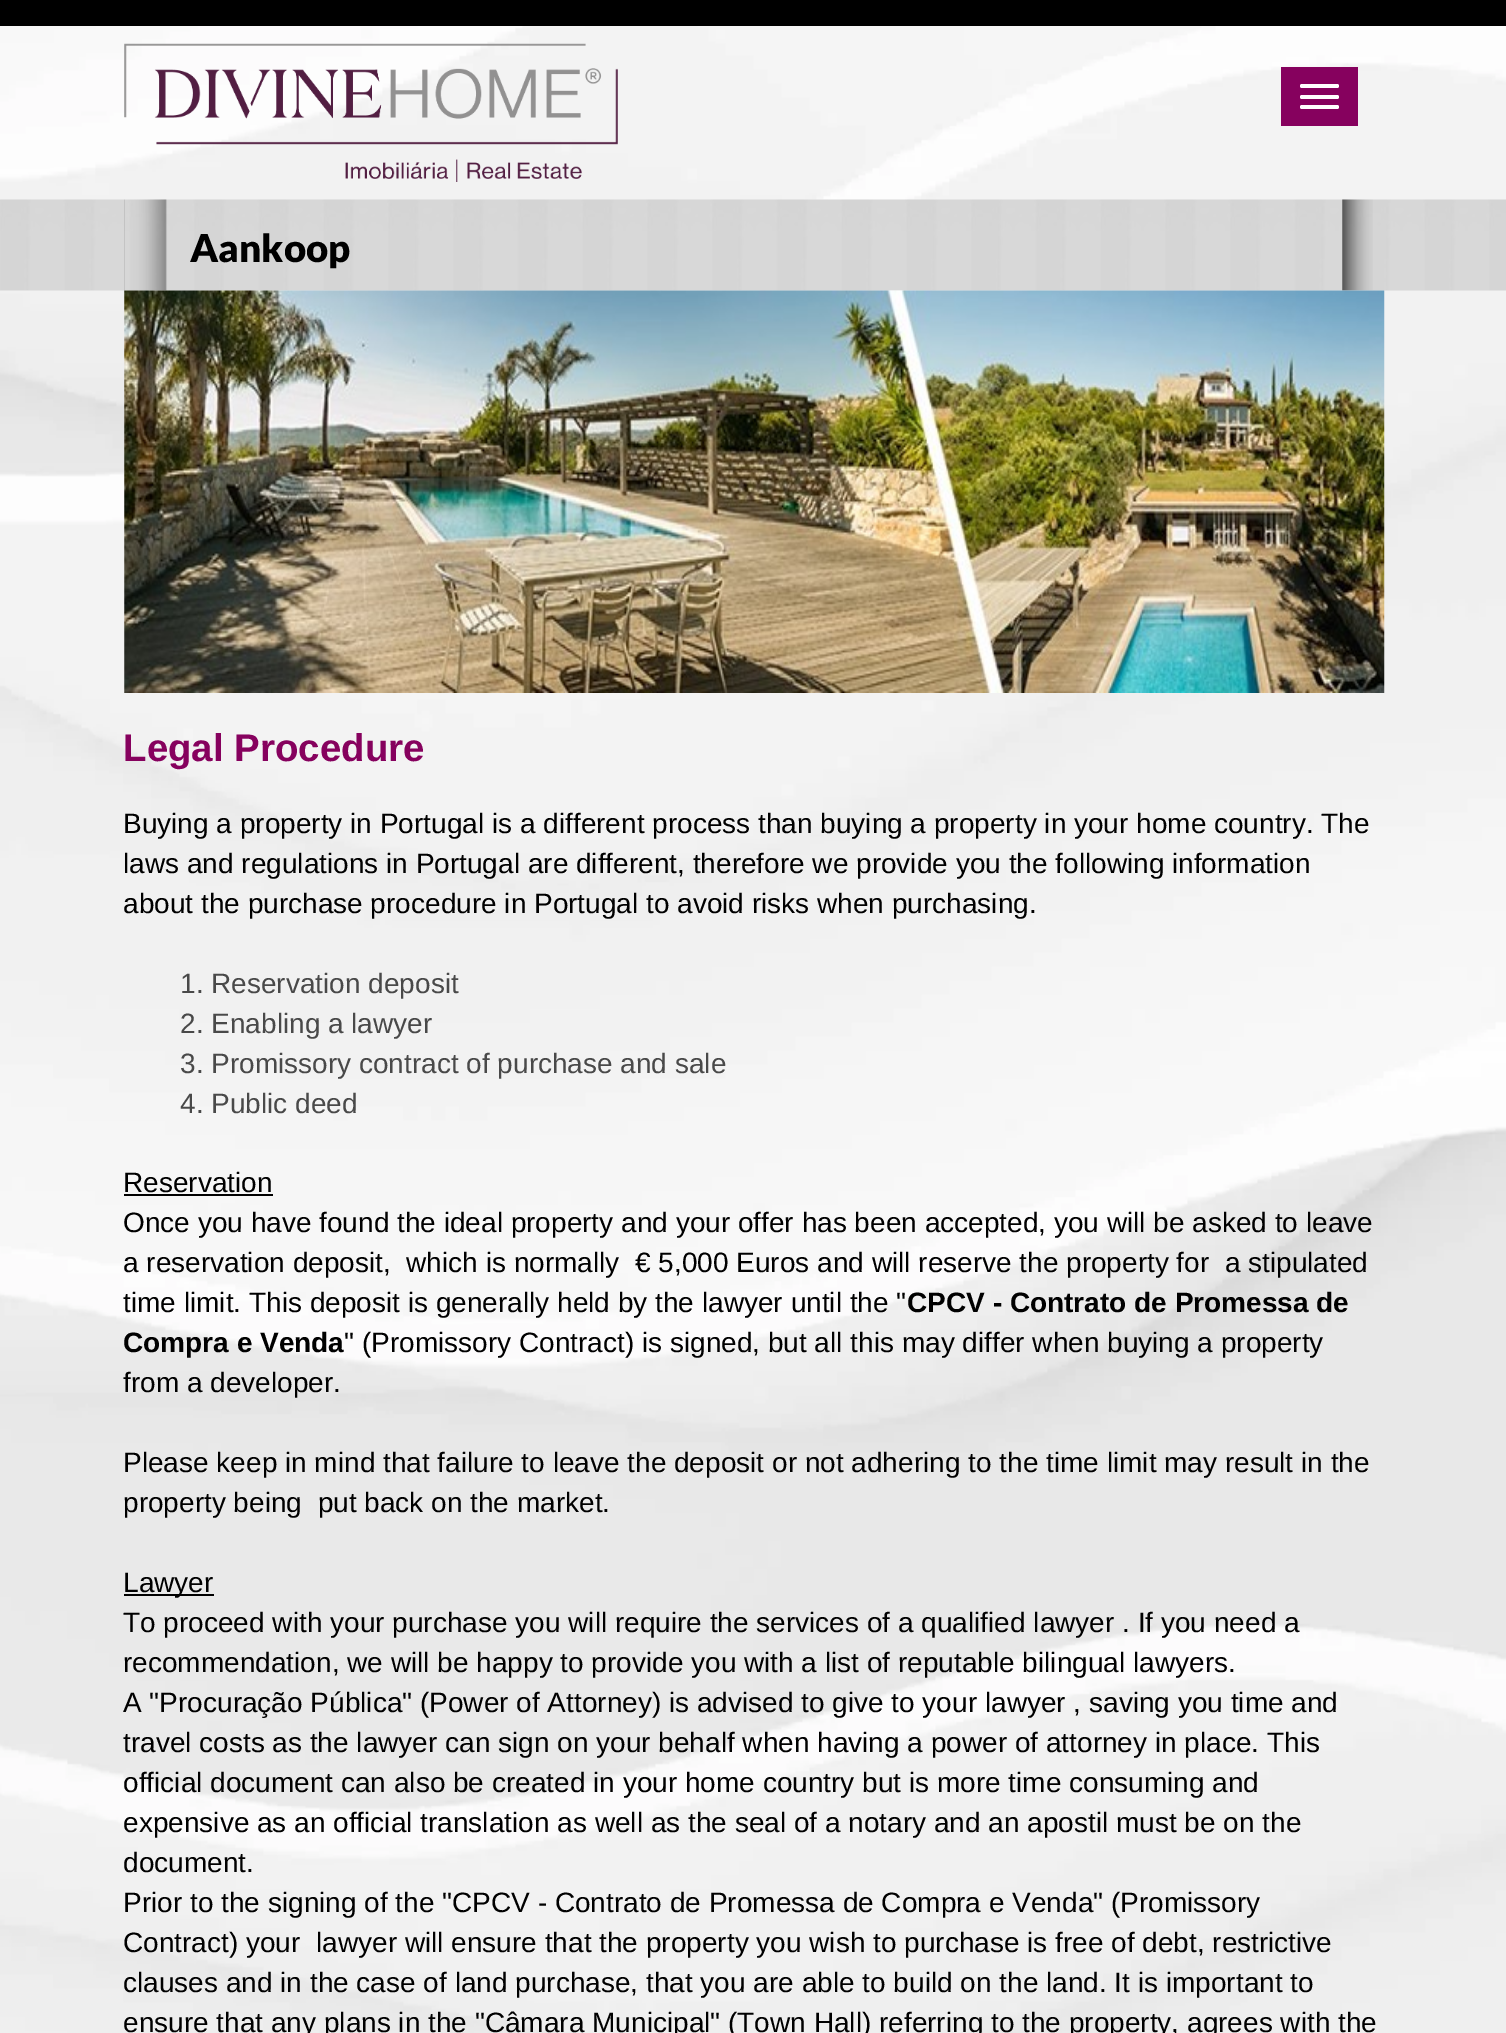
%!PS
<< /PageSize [1506 2033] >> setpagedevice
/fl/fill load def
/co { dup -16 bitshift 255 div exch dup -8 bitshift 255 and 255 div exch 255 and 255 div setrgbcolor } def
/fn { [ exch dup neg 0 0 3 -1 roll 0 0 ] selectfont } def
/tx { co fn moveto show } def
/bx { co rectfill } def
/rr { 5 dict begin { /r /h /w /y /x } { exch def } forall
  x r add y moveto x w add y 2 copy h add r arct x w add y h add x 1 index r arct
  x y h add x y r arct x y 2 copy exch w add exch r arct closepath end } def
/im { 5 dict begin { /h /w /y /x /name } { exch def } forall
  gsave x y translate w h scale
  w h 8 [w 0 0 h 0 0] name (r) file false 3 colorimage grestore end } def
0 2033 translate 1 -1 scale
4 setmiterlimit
0 0 1506 2033 16#FFFFFF bx
(media/1.raw) 0 26 1506 2007 im
0 0 1506 26 16#000000 bx
(media/2.raw) 124 43 494 139 im
1281 67 77 59 16#86015E bx
16#FFFFFF co
1300 84 39 4 2 rr fl
1300 95 39 4 2 rr fl
1300 105 39 4 2 rr fl
(media/3.raw) 0 199 1506 92 im
(media/4.raw) 124 199 1249 92 im
(media/5.raw) 124 290 1261 403 im
124 1194 149 2 16#000000 bx
124 1594 90 2 16#000000 bx
(Aankoop) 190 262 /Lato-Black 38.5 16#000000 tx
(Legal Procedure) 123 761 /LiberationSans-Bold 38.5 16#86015E tx
(Buying a property in Portugal is a different process than buying a property in your home country. The) 123 833 /LiberationSans-Regular 28 16#000000 tx
(laws and regulations in Portugal are different, therefore we provide you the following information) 123 873 /LiberationSans-Regular 28 16#000000 tx
(about the purchase procedure in Portugal to avoid risks when purchasing.) 123 913 /LiberationSans-Regular 28 16#000000 tx
(1. Reservation deposit) 180 993 /LiberationSans-Regular 28 16#494949 tx
(2. Enabling a lawyer) 180 1033 /LiberationSans-Regular 28 16#494949 tx
(3. Promissory contract of purchase and sale) 180 1073 /LiberationSans-Regular 28 16#494949 tx
(4. Public deed) 180 1113 /LiberationSans-Regular 28 16#494949 tx
(Reservation) 123 1192 /LiberationSans-Regular 28 16#000000 tx
(Once you have found the ideal property and your offer has been accepted, you will be asked to leave) 123 1232 /LiberationSans-Regular 28 16#000000 tx
(a reservation deposit,  which is normally  € 5,000 Euros and will reserve the property for  a stipulated) 123 1272 /LiberationSans-Regular 28 16#000000 tx
(time limit. This deposit is generally held by the lawyer until the ") 123 1312 /LiberationSans-Regular 28 16#000000 tx
(CPCV - Contrato de Promessa de) 907 1312 /LiberationSans-Bold 28 16#000000 tx
(Compra e Venda) 123 1352 /LiberationSans-Bold 28 16#000000 tx
(" \(Promissory Contract\) is signed, but all this may differ when buying a property) 344 1352 /LiberationSans-Regular 28 16#000000 tx
(from a developer.) 123 1392 /LiberationSans-Regular 28 16#000000 tx
(Please keep in mind that failure to leave the deposit or not adhering to the time limit may result in the) 123 1472 /LiberationSans-Regular 28 16#000000 tx
(property being  put back on the market.) 123 1512 /LiberationSans-Regular 28 16#000000 tx
(Lawyer) 123 1592 /LiberationSans-Regular 28 16#000000 tx
(To proceed with your purchase you will require the services of a qualified lawyer . If you need a) 123 1632 /LiberationSans-Regular 28 16#000000 tx
(recommendation, we will be happy to provide you with a list of reputable bilingual lawyers.) 123 1672 /LiberationSans-Regular 28 16#000000 tx
(A "Procuração Pública" \(Power of Attorney\) is advised to give to your lawyer , saving you time and) 123 1712 /LiberationSans-Regular 28 16#000000 tx
(travel costs as the lawyer can sign on your behalf when having a power of attorney in place. This) 123 1752 /LiberationSans-Regular 28 16#000000 tx
(official document can also be created in your home country but is more time consuming and) 123 1792 /LiberationSans-Regular 28 16#000000 tx
(expensive as an official translation as well as the seal of a notary and an apostil must be on the) 123 1832 /LiberationSans-Regular 28 16#000000 tx
(document.) 123 1872 /LiberationSans-Regular 28 16#000000 tx
(Prior to the signing of the "CPCV - Contrato de Promessa de Compra e Venda" \(Promissory) 123 1912 /LiberationSans-Regular 28 16#000000 tx
(Contract\) your  lawyer will ensure that the property you wish to purchase is free of debt, restrictive) 123 1952 /LiberationSans-Regular 28 16#000000 tx
(clauses and in the case of land purchase, that you are able to build on the land. It is important to) 123 1992 /LiberationSans-Regular 28 16#000000 tx
(ensure that any plans in the "Câmara Municipal" \(Town Hall\) referring to the property, agrees with the) 123 2032 /LiberationSans-Regular 28 16#000000 tx
showpage
